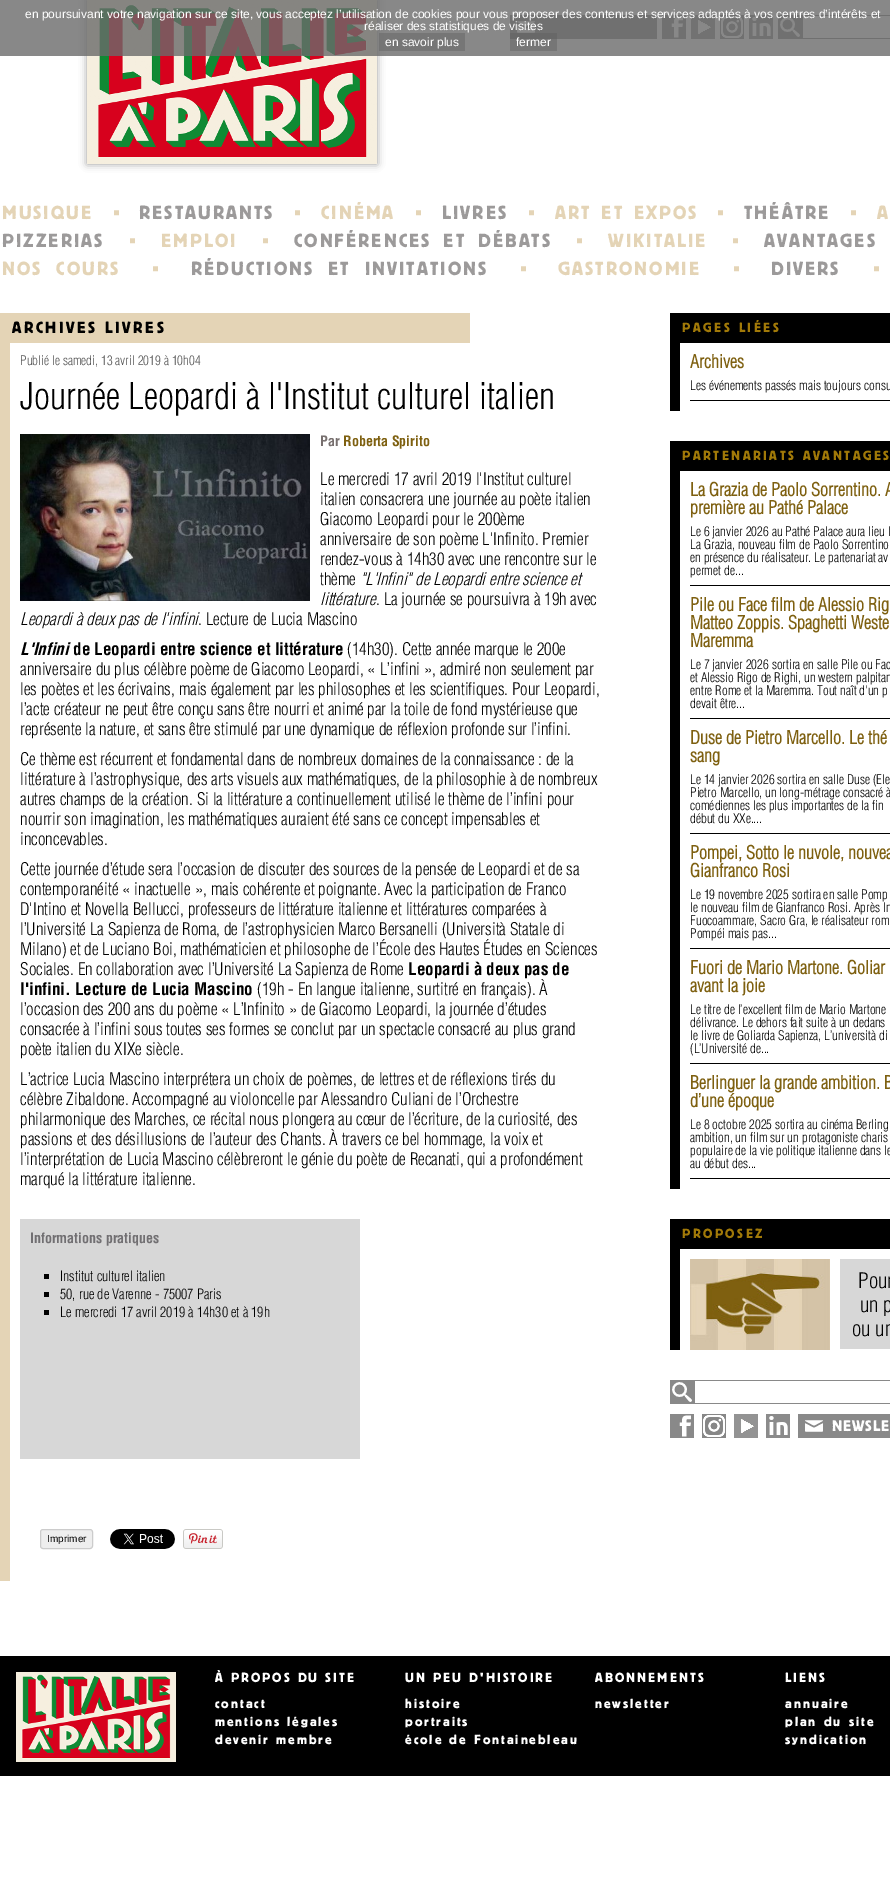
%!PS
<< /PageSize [890 1903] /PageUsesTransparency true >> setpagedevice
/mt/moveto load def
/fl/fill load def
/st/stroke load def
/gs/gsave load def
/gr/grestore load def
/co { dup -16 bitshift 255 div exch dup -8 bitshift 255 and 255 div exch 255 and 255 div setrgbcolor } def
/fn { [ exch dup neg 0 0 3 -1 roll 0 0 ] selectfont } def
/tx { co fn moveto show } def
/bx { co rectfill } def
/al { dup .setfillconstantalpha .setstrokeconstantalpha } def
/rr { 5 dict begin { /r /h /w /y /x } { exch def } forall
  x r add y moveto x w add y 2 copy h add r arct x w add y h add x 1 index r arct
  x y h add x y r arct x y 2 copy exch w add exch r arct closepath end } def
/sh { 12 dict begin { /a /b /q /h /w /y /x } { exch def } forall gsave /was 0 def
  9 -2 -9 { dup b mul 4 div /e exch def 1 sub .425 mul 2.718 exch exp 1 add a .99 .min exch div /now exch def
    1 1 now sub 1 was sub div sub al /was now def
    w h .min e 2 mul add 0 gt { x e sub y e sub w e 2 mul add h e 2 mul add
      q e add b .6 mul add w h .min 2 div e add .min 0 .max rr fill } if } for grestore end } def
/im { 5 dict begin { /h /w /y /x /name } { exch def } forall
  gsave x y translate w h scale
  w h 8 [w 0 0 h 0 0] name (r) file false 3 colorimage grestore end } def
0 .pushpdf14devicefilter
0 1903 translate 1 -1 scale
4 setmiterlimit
0 0 890 1903 16#FFFFFF bx
16#999999 co
87 0 290 164 0 4 1 sh
(media/1.raw) 87 0 290 164 im
510 15 147 24 16#898989 bx
(media/2.raw) 517 21 18 12 im
(media/3.raw) 662 15 24 24 im
(media/4.raw) 691 15 24 24 im
(media/5.raw) 720 15 24 24 im
(media/6.raw) 749 15 24 24 im
778 15 112 24 16#898989 bx
(media/7.raw) 780 17 20 20 im
803 16 87 22 16#FFFFFF bx
0.8 al
0 0 890 56 16#6A6A6A bx
0.4 al
379 33 86 18 16#5C5C5C bx
510 33 47 18 16#5C5C5C bx
1 al
0 313 470 30 16#E4D4B6 bx
0 343 10 1238 16#E4D4B6 bx
(media/8.raw) 20 434 290 167 im
20 1219 340 240 16#D7D7D7 bx
44 1274 5 5 16#000000 bx
44 1292 5 5 16#000000 bx
44 1310 5 5 16#000000 bx
16#EEEEEE co
40.5 1529.5 52 19 2.5 rr gs fl gr
16#CCCCCC co
st
(media/9.raw) 110 1529 65 20 im
(media/10.raw) 183 1529 40 20 im
670 313 220 30 16#000000 bx
670 343 10 68 16#000000 bx
690 400 200 1 16#000000 bx
670 441 220 30 16#000000 bx
670 471 10 718 16#000000 bx
690 585 200 1 16#000000 bx
690 718 200 1 16#000000 bx
690 833 200 1 16#000000 bx
690 948 200 1 16#000000 bx
690 1063 200 1 16#000000 bx
690 1178 200 1 16#000000 bx
670 1219 220 30 16#000000 bx
670 1249 10 101 16#000000 bx
(media/11.raw) 690 1259 140 91 im
840 1259 50 90 16#D7D7D7 bx
670 1380 220 24 16#898989 bx
(media/7.raw) 672 1382 20 20 im
695 1381 195 22 16#FFFFFF bx
(media/3.raw) 670 1414 24 24 im
(media/5.raw) 702 1414 24 24 im
(media/4.raw) 734 1414 24 24 im
(media/6.raw) 766 1414 24 24 im
798 1414 92 24 16#898989 bx
(media/2.raw) 805 1420 18 12 im
0 1656 890 120 16#000000 bx
(media/12.raw) 16 1672 160 90 im
(en poursuivant votre navigation sur ce site, vous acceptez l’utilisation de cookies pour vous proposer des contenus et services adaptés à vos centres d’intérêts et) 25 18 /LiberationSans-Regular 12 16#FFFFFF tx
(réaliser des statistiques de visites) 364 30 /LiberationSans-Regular 12 16#FFFFFF tx
(en savoir plus) 385 46 /LiberationSans-Regular 12 16#FFFFFF tx
(fermer) 516 46 /LiberationSans-Regular 12 16#FFFFFF tx
/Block-Regular 20 fn
16#E4D4B6 co
2 219 mt 2 0 (MUSIQUE) ashow
(▪) 113 219 /LiberationSerif-Regular 20 16#E4D4B6 tx
/Block-Regular 20 fn
16#9C9A9A co
139 219 mt 2 0 (RESTAURANTS) ashow
(▪) 294 219 /LiberationSerif-Regular 20 16#E4D4B6 tx
/Block-Regular 20 fn
321 219 mt 2 0 (CINÉMA) ashow
(▪) 415 219 /LiberationSerif-Regular 20 16#E4D4B6 tx
/Block-Regular 20 fn
16#9C9A9A co
442 219 mt 2 0 (LIVRES) ashow
(▪) 528 219 /LiberationSerif-Regular 20 16#E4D4B6 tx
/Block-Regular 20 fn
555 219 mt 2 0 32 2 0 (ART ET EXPOS) awidthshow
(▪) 717 219 /LiberationSerif-Regular 20 16#E4D4B6 tx
/Block-Regular 20 fn
16#9C9A9A co
744 219 mt 2 0 (THÉÂTRE) ashow
(▪) 850 219 /LiberationSerif-Regular 20 16#E4D4B6 tx
/Block-Regular 20 fn
877 219 mt 2 0 (A) ashow
16#9C9A9A co
2 247 mt 2 0 (PIZZERIAS) ashow
(▪) 129 247 /LiberationSerif-Regular 20 16#E4D4B6 tx
/Block-Regular 20 fn
161 247 mt 2 0 (EMPLOI) ashow
(▪) 262 247 /LiberationSerif-Regular 20 16#E4D4B6 tx
/Block-Regular 20 fn
16#9C9A9A co
294 247 mt 4 0 32 2 0 (CONFÉRENCES ET DÉBATS) awidthshow
(▪) 576 247 /LiberationSerif-Regular 20 16#E4D4B6 tx
/Block-Regular 20 fn
608 247 mt 2 0 (WIKITALIE) ashow
(▪) 732 247 /LiberationSerif-Regular 20 16#E4D4B6 tx
/Block-Regular 20 fn
16#9C9A9A co
764 247 mt 4 0 32 2 0 (AVANTAGES) awidthshow
16#E4D4B6 co
2 275 mt 6 0 32 2 0 (NOS COURS) awidthshow
(▪) 152 275 /LiberationSerif-Regular 20 16#E4D4B6 tx
/Block-Regular 20 fn
16#9C9A9A co
191 275 mt 6 0 32 2 0 (RÉDUCTIONS ET INVITATIONS) awidthshow
(▪) 520 275 /LiberationSerif-Regular 20 16#E4D4B6 tx
/Block-Regular 20 fn
558 275 mt 2 0 (GASTRONOMIE) ashow
(▪) 733 275 /LiberationSerif-Regular 20 16#E4D4B6 tx
/Block-Regular 20 fn
16#9C9A9A co
771 275 mt 2 0 (DIVERS) ashow
(▪) 873 275 /LiberationSerif-Regular 20 16#E4D4B6 tx
/Block-Regular 17 fn
16#000000 co
12 333 mt 2.5 0 (ARCHIVES LIVRES) ashow
(Publié le samedi, 13 avril 2019 à 10h04) 20 365 /Helvetica-Light 13 16#555555 tx
(Journée Leopardi à l'Institut culturel italien) 20 409 /Helvetica-Light 36 16#000000 tx
(Par) 320 446 /Helvetica-Bold 14 16#776F6E tx
(Roberta Spirito) 343 446 /Helvetica-Bold 14 16#7E6010 tx
(Le mercredi 17 avril 2019 l'Institut culturel) 320 485 /Helvetica-Light 17 16#000000 tx
(italien consacrera une journée au poète italien) 320 505 /Helvetica-Light 17 16#000000 tx
(Giacomo Leopardi pour le 200ème) 320 525 /Helvetica-Light 17 16#000000 tx
(anniversaire de son poème L'Infinito. Premier) 320 545 /Helvetica-Light 17 16#000000 tx
(rendez-vous à 14h30 avec une rencontre sur le) 320 565 /Helvetica-Light 17 16#000000 tx
(thème) 320 585 /Helvetica-Light 17 16#000000 tx
("L'Infini" de Leopardi entre science et) 360 585 /Helvetica-LightItalic 17 16#000000 tx
(littérature) 320 605 /Helvetica-LightItalic 17 16#000000 tx
(. La journée se poursuivra à 19h avec) 376 605 /Helvetica-Light 17 16#000000 tx
(Leopardi à deux pas de l'infini) 20 625 /Helvetica-LightItalic 17 16#000000 tx
(. Lecture de Lucia Mascino) 198 625 /Helvetica-Light 17 16#000000 tx
(L'Infini) 20 655 /Helvetica-BoldItalic 17 16#000000 tx
(de Leopardi entre science et littérature) 73 655 /Helvetica-Bold 17 16#000000 tx
(\(14h30\). Cette année marque le 200e) 347 655 /Helvetica-Light 17 16#000000 tx
(anniversaire du plus célèbre poème de Giacomo Leopardi, « L’infini », admiré non seulement par) 20 675 /Helvetica-Light 17 16#000000 tx
(les poètes et les écrivains, mais également par les philosophes et les scientifiques. Pour Leopardi,) 20 695 /Helvetica-Light 17 16#000000 tx
(l’acte créateur ne peut être conçu sans être nourri et animé par la toile de fond mystérieuse que) 20 715 /Helvetica-Light 17 16#000000 tx
(représente la nature, et sans être stimulé par une dynamique de réflexion profonde sur l’infini.) 20 735 /Helvetica-Light 17 16#000000 tx
(Ce thème est récurrent et fondamental dans de nombreux domaines de la connaissance : de la) 20 765 /Helvetica-Light 17 16#000000 tx
(littérature à l’astrophysique, des arts visuels aux mathématiques, de la philosophie à de nombreux) 20 785 /Helvetica-Light 17 16#000000 tx
(autres champs de la création. Si la littérature a continuellement utilisé le thème de l’infini pour) 20 805 /Helvetica-Light 17 16#000000 tx
(nourrir son imagination, les mathématiques auraient été sans ce concept impensables et) 20 825 /Helvetica-Light 17 16#000000 tx
(inconcevables.) 20 845 /Helvetica-Light 17 16#000000 tx
(Cette journée d’étude sera l’occasion de discuter des sources de la pensée de Leopardi et de sa) 20 875 /Helvetica-Light 17 16#000000 tx
(contemporanéité « inactuelle », mais cohérente et poignante. Avec la participation de Franco) 20 895 /Helvetica-Light 17 16#000000 tx
(D'Intino et Novella Bellucci, professeurs de littérature italienne et littératures comparées à) 20 915 /Helvetica-Light 17 16#000000 tx
(l’Université La Sapienza de Roma, de l’astrophysicien Marco Bersanelli \(Università Statale di) 20 935 /Helvetica-Light 17 16#000000 tx
(Milano\) et de Luciano Boi, mathématicien et philosophe de l’École des Hautes Études en Sciences) 20 955 /Helvetica-Light 17 16#000000 tx
(Sociales. En collaboration avec l’Université La Sapienza de Rome) 20 975 /Helvetica-Light 17 16#000000 tx
(Leopardi à deux pas de) 408 975 /Helvetica-Bold 17 16#000000 tx
(l'infini. Lecture de Lucia Mascino) 20 995 /Helvetica-Bold 17 16#000000 tx
(\(19h - En langue italienne, surtitré en français\). À) 257 995 /Helvetica-Light 17 16#000000 tx
(l’occasion des 200 ans du poème « L’Infinito » de Giacomo Leopardi, la journée d’études) 20 1015 /Helvetica-Light 17 16#000000 tx
(consacrée à l’infini sous toutes ses formes se conclut par un spectacle consacré au plus grand) 20 1035 /Helvetica-Light 17 16#000000 tx
(poète italien du XIXe siècle.) 20 1055 /Helvetica-Light 17 16#000000 tx
(L’actrice Lucia Mascino interprétera un choix de poèmes, de lettres et de réflexions tirés du) 20 1085 /Helvetica-Light 17 16#000000 tx
(célèbre Zibaldone. Accompagné au violoncelle par Alessandro Culiani de l’Orchestre) 20 1105 /Helvetica-Light 17 16#000000 tx
(philarmonique des Marches, ce récital nous plongera au cœur de l’écriture, de la curiosité, des) 20 1125 /Helvetica-Light 17 16#000000 tx
(passions et des désillusions de l’auteur des Chants. À travers ce bel hommage, la voix et) 20 1145 /Helvetica-Light 17 16#000000 tx
(l’interprétation de Lucia Mascino célèbreront le génie du poète de Recanati, qui a profondément) 20 1165 /Helvetica-Light 17 16#000000 tx
(marqué la littérature italienne.) 20 1185 /Helvetica-Light 17 16#000000 tx
(Informations pratiques) 30 1243 /Helvetica-Bold 14 16#716F72 tx
(Institut culturel italien) 60 1281 /Helvetica-Light 14 16#000000 tx
(50, rue de Varenne - 75007 Paris) 60 1299 /Helvetica-Light 14 16#000000 tx
(Le mercredi 17 avril 2019 à 14h30 et à 19h) 60 1317 /Helvetica-Light 14 16#000000 tx
(Imprimer) 47 1542 /LiberationSans-Regular 10 16#000000 tx
/Block-Regular 14 fn
16#A17908 co
682 332 mt 2.5 0 (PAGES LIÉES) ashow
(Archives) 690 368 /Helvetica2-Bold 18 16#7E6010 tx
(Les événements passés mais toujours consu) 690 390 /Helvetica-Light 13 16#000000 tx
/Block-Regular 14 fn
16#A17908 co
682 460 mt 2.5 0 (PARTENARIATS AVANTAGES) ashow
(La Grazia de Paolo Sorrentino. A) 690 496 /Helvetica2-Bold 18 16#7E6010 tx
(première au Pathé Palace) 690 514 /Helvetica2-Bold 18 16#7E6010 tx
(Le 6 janvier 2026 au Pathé Palace aura lieu l) 690 536 /Helvetica-Light 13 16#000000 tx
(La Grazia, nouveau film de Paolo Sorrentino) 690 549 /Helvetica-Light 13 16#000000 tx
(en présence du réalisateur. Le partenariat av) 690 562 /Helvetica-Light 13 16#000000 tx
(permet de...) 690 575 /Helvetica-Light 13 16#000000 tx
(Pile ou Face film de Alessio Rig) 690 611 /Helvetica2-Bold 18 16#7E6010 tx
(Matteo Zoppis. Spaghetti Weste) 690 629 /Helvetica2-Bold 18 16#7E6010 tx
(Maremma) 690 647 /Helvetica2-Bold 18 16#7E6010 tx
(Le 7 janvier 2026 sortira en salle Pile ou Fac) 690 669 /Helvetica-Light 13 16#000000 tx
(et Alessio Rigo de Righi, un western palpitan) 690 682 /Helvetica-Light 13 16#000000 tx
(entre Rome et la Maremma. Tout naît d'un p) 690 695 /Helvetica-Light 13 16#000000 tx
(devait être...) 690 708 /Helvetica-Light 13 16#000000 tx
(Duse de Pietro Marcello. Le thé) 690 744 /Helvetica2-Bold 18 16#7E6010 tx
(sang) 690 762 /Helvetica2-Bold 18 16#7E6010 tx
(Le 14 janvier 2026 sortira en salle Duse \(Ele) 690 784 /Helvetica-Light 13 16#000000 tx
(Pietro Marcello, un long-métrage consacré à) 690 797 /Helvetica-Light 13 16#000000 tx
(comédiennes les plus importantes de la fin) 690 810 /Helvetica-Light 13 16#000000 tx
(début du XXe....) 690 823 /Helvetica-Light 13 16#000000 tx
(Pompei, Sotto le nuvole, nouvea) 690 859 /Helvetica2-Bold 18 16#7E6010 tx
(Gianfranco Rosi) 690 877 /Helvetica2-Bold 18 16#7E6010 tx
(Le 19 novembre 2025 sortira en salle Pomp) 690 899 /Helvetica-Light 13 16#000000 tx
(le nouveau film de Gianfranco Rosi. Après In) 690 912 /Helvetica-Light 13 16#000000 tx
(Fuocoammare, Sacro Gra, le réalisateur rom) 690 925 /Helvetica-Light 13 16#000000 tx
(Pompéi mais pas...) 690 938 /Helvetica-Light 13 16#000000 tx
(Fuori de Mario Martone. Goliar) 690 974 /Helvetica2-Bold 18 16#7E6010 tx
(avant la joie) 690 992 /Helvetica2-Bold 18 16#7E6010 tx
(Le titre de l’excellent film de Mario Martone) 690 1014 /Helvetica-Light 13 16#000000 tx
(délivrance. Le dehors fait suite à un dedans) 690 1027 /Helvetica-Light 13 16#000000 tx
(le livre de Goliarda Sapienza, L’università di) 690 1040 /Helvetica-Light 13 16#000000 tx
(\(L’Université de...) 690 1053 /Helvetica-Light 13 16#000000 tx
(Berlinguer la grande ambition. B) 690 1089 /Helvetica2-Bold 18 16#7E6010 tx
(d’une époque) 690 1107 /Helvetica2-Bold 18 16#7E6010 tx
(Le 8 octobre 2025 sortira au cinéma Berling) 690 1129 /Helvetica-Light 13 16#000000 tx
(ambition, un film sur un protagoniste charis) 690 1142 /Helvetica-Light 13 16#000000 tx
(populaire de la vie politique italienne dans le) 690 1155 /Helvetica-Light 13 16#000000 tx
(au début des...) 690 1168 /Helvetica-Light 13 16#000000 tx
/Block-Regular 14 fn
16#A17908 co
682 1238 mt 2.5 0 (PROPOSEZ) ashow
(Pour) 858 1288 /Helvetica-Light 21 16#000000 tx
(un p) 860 1312 /Helvetica-Light 21 16#000000 tx
(ou un) 852 1336 /Helvetica-Light 21 16#000000 tx
/Block-Regular 16 fn
16#FFFFFF co
832 1431 mt .75 0 (NEWSLE) ashow
/Block-Regular 14 fn
215 1682 mt 2 0 (À PROPOS DU SITE) ashow
215 1708 mt 2 0 (contact) ashow
215 1726 mt 2 0 (mentions légales) ashow
215 1744 mt 2 0 (devenir membre) ashow
405 1682 mt 2 0 (UN PEU D'HISTOIRE) ashow
405 1708 mt 2 0 (histoire) ashow
405 1726 mt 2 0 (portraits) ashow
405 1744 mt 2 0 (école de Fontainebleau) ashow
595 1682 mt 2 0 (ABONNEMENTS) ashow
595 1708 mt 2 0 (newsletter) ashow
785 1682 mt 2 0 (LIENS) ashow
785 1708 mt 2 0 (annuaire) ashow
785 1726 mt 2 0 (plan du site) ashow
785 1744 mt 2 0 (syndication) ashow
.poppdf14devicefilter showpage
